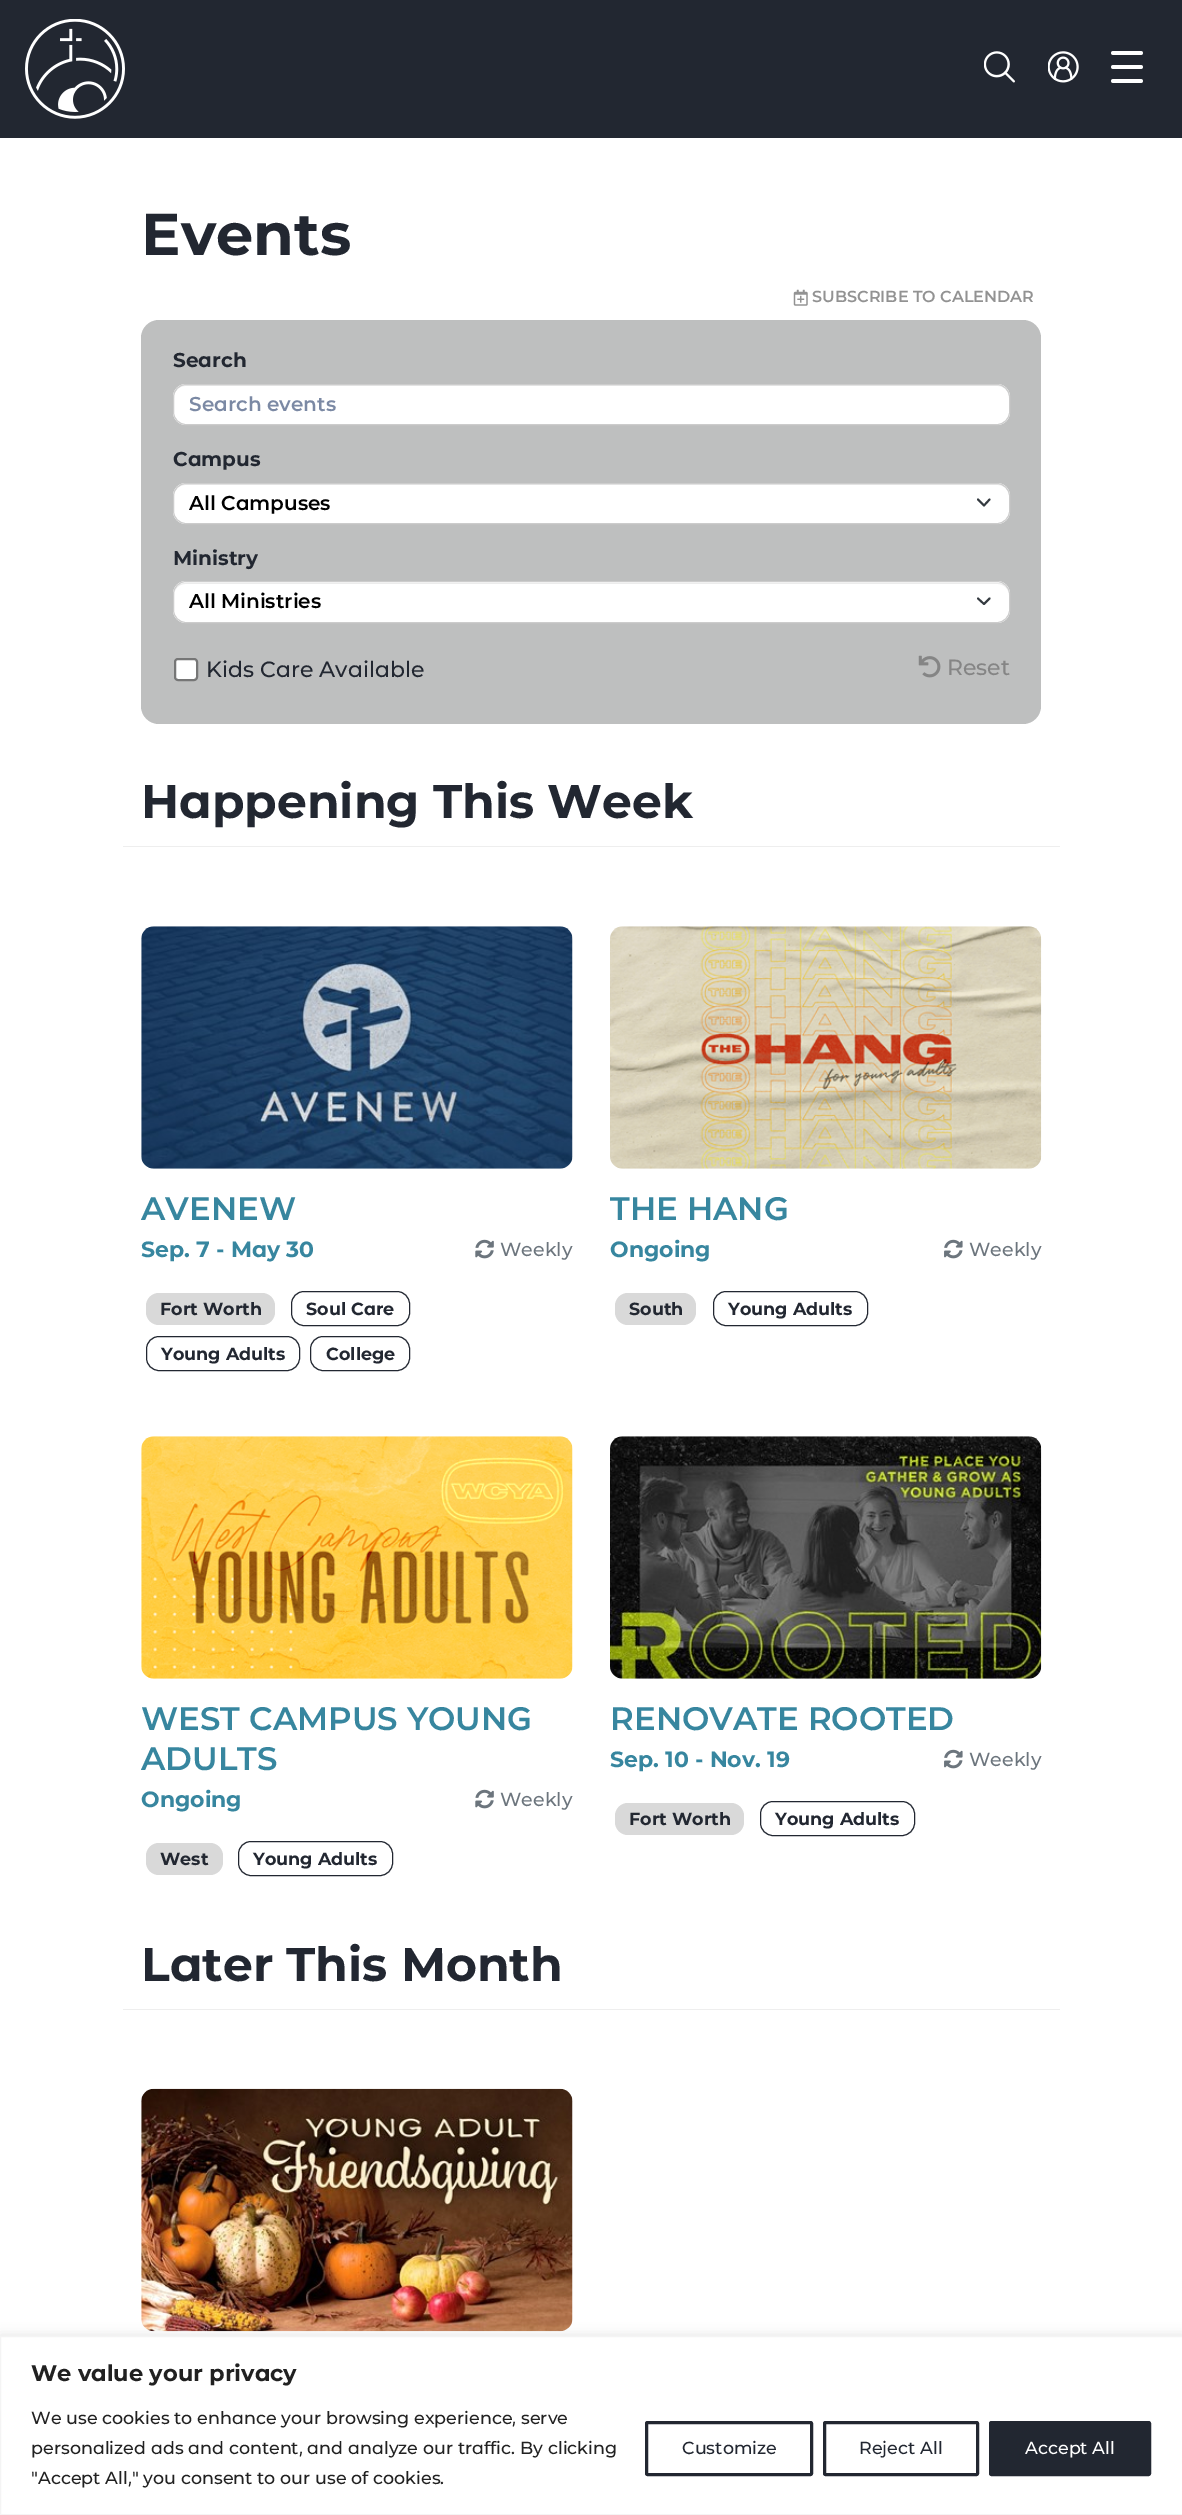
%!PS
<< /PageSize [1182 2515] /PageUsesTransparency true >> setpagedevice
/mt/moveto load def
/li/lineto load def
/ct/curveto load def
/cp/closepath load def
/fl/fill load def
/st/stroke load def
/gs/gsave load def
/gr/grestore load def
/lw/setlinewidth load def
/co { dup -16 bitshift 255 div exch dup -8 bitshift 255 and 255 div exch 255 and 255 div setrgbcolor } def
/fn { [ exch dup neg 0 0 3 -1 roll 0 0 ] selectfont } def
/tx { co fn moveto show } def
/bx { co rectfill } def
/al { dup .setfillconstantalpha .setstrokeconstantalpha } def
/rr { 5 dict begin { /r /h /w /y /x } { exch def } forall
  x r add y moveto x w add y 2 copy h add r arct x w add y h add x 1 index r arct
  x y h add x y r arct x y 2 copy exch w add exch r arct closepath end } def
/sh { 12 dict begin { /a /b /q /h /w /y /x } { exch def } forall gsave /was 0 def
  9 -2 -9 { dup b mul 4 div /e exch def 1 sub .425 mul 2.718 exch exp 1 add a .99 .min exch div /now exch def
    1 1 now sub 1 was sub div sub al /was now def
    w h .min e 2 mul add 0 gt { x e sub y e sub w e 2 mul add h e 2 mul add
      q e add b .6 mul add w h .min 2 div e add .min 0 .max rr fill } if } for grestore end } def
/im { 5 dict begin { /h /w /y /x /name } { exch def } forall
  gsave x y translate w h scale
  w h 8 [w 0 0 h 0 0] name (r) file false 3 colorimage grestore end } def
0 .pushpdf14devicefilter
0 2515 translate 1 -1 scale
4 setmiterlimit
0 0 1182 2515 16#FFFFFF bx
0 0 1182 138 16#222731 bx
(media/1.raw) 25 19 100 100 im
(media/2.raw) 984 51 31 32 im
(media/3.raw) 1048 51 31 32 im
16#FFFFFF co
3.8 lw
1 setlinecap
1113 53 mt 1141 53 li 1113 67 mt 1141 67 li 1113 81 mt 1141 81 li st
(media/4.raw) 793 289 15 17 im
16#BEBFBF co
141 320 900 404 18 rr fl
16#FFFFFF co
173 384 837 41 13 rr fl
16#ECECEC co
185 386 mt 998 386 li 1004 386 1009 391 1009 398 ct 1009 396 li 1009 390 1004 385 998 385 ct 185 385 li 179 385 174 390 174 396 ct 174 398 li 174 391 179 386 185 386 ct cp fl
16#CCCCCC co
1 lw
0 setlinecap
173.5 384.5 836 40 12.5 rr st
16#FFFFFF co
173 483 837 41 13 rr fl
16#343A40 co
1.9 lw
1 setlinecap
1 setlinejoin
978 499.5 mt 984 505.5 li 989.5 499.5 li st
16#ECECEC co
185 485 mt 998 485 li 1004 485 1009 490 1009 496 ct 1009 490 1005 484 998 484 ct 185 484 li 178 484 174 490 174 496 ct 174 490 179 485 185 485 ct cp fl
16#CCCCCC co
1 lw
0 setlinecap
0 setlinejoin
173.5 483.5 836 40 12.5 rr st
16#FFFFFF co
173 581 837 42 13 rr fl
16#343A40 co
1.9 lw
1 setlinecap
1 setlinejoin
978 598.5 mt 984 604 li 989.5 598.5 li st
16#ECECEC co
185 584 mt 998 584 li 1004 584 1009 589 1009 595 ct 1009 589 1005 583 998 583 ct 185 583 li 178 583 174 589 174 595 ct 174 589 179 584 185 584 ct cp fl
16#CCCCCC co
1 lw
0 setlinecap
0 setlinejoin
173.5 581.5 836 41 12.5 rr st
16#FFFFFF co
175 659 22 21 3 rr gs fl gr
16#767676 co
2 lw
st
(media/5.raw) 918 655 23 23 im
123 846 937 1 16#EEEEEE bx
(media/6.raw) 141 926 432 243 im
(media/7.raw) 475 1239 19 20 im
16#D9D9D9 co
146 1293 129 32 13 rr fl
16#222731 co
1 lw
291.5 1291.5 118 34 12.5 rr st
146.5 1336.5 153 34 12.5 rr st
310.5 1336.5 99 34 12.5 rr st
(media/8.raw) 610 926 432 243 im
(media/9.raw) 944 1239 19 20 im
16#D9D9D9 co
615 1293 81 32 13 rr fl
16#222731 co
713.5 1291.5 154 34 12.5 rr st
(media/10.raw) 141 1436 432 243 im
(media/7.raw) 475 1789 19 20 im
16#D9D9D9 co
146 1843 77 32 13 rr fl
16#222731 co
238.5 1841.5 154 34 12.5 rr st
(media/11.raw) 610 1436 432 243 im
(media/9.raw) 944 1749 19 20 im
16#D9D9D9 co
615 1803 129 32 13 rr fl
16#222731 co
760.5 1801.5 154 34 12.5 rr st
123 2009 937 1 16#EEEEEE bx
(media/12.raw) 141 2088 432 244 im
16#ACABAB co
0 2335 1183 179 0 6 .3 sh
16#FFFFFF co
.5 2336.5 mt 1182.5 2336.5 li 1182.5 2514.5 li .5 2514.5 li cp gs fl gr
16#F4F4F4 co
st
16#222731 co
3 lw
646.5 2422.5 165 52 1 rr st
824.5 2422.5 153 52 1 rr st
990.5 2422.5 159 52 1 rr gs fl gr
st
(Events) 141 255 /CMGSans-Bold 59 16#222731 tx
(SUBSCRIBE TO CALENDAR) 812 302 /CMGSans-SemiBold 16 16#929292 tx
(Search) 173 367 /CMGSans-Bold 20 16#222731 tx
(Search events) 189 411 /CMGSans-SemiBold 20 16#7B89A4 tx
(Campus) 173 466 /CMGSans-Bold 20 16#222731 tx
(All Campuses) 189 510 /CMGSans-SemiBold 20 16#000000 tx
(Ministry) 173 565 /CMGSans-Bold 20 16#222731 tx
(All Ministries) 189 608 /CMGSans-SemiBold 20 16#000000 tx
(Kids Care Available) 206 677 /CMGSans-Medium 22 16#222731 tx
(Reset) 947 675 /CMGSans-Medium 22 16#858585 tx
(Happening This Week) 141 818 /CMGSans-Bold 47.25 16#222731 tx
(AVENEW) 141 1220 /CMGSans-SemiBold 32.5 16#37869F tx
(Sep. 7 - May 30) 141 1257 /CMGSans-Bold 22 16#37869F tx
(Weekly) 500 1256 /CMGSans-Medium 19 16#6C757D tx
(Fort Worth) 160 1315 /CMGSans-Bold 17.5 16#222731 tx
(Soul Care) 306 1315 /CMGSans-Bold 17.5 16#222731 tx
(Young Adults) 161 1360 /CMGSans-Bold 17.5 16#222731 tx
(College) 326 1360 /CMGSans-Bold 17.5 16#222731 tx
(THE HANG) 610 1220 /CMGSans-SemiBold 32.5 16#37869F tx
(Ongoing) 610 1257 /CMGSans-Bold 22 16#37869F tx
(Weekly) 969 1256 /CMGSans-Medium 19 16#6C757D tx
(South) 629 1315 /CMGSans-Bold 17.5 16#222731 tx
(Young Adults) 728 1315 /CMGSans-Bold 17.5 16#222731 tx
(WEST CAMPUS YOUNG) 141 1730 /CMGSans-SemiBold 32.5 16#37869F tx
(ADULTS) 141 1770 /CMGSans-SemiBold 32.5 16#37869F tx
(Ongoing) 141 1807 /CMGSans-Bold 22 16#37869F tx
(Weekly) 500 1806 /CMGSans-Medium 19 16#6C757D tx
(West) 160 1865 /CMGSans-Bold 17.5 16#222731 tx
(Young Adults) 253 1865 /CMGSans-Bold 17.5 16#222731 tx
(RENOVATE ROOTED) 610 1730 /CMGSans-SemiBold 32.5 16#37869F tx
(Sep. 10 - Nov. 19) 610 1767 /CMGSans-Bold 22 16#37869F tx
(Weekly) 969 1766 /CMGSans-Medium 19 16#6C757D tx
(Fort Worth) 629 1825 /CMGSans-Bold 17.5 16#222731 tx
(Young Adults) 775 1825 /CMGSans-Bold 17.5 16#222731 tx
(Later This Month) 141 1981 /CMGSans-Bold 47.25 16#222731 tx
(We value your privacy) 31 2381 /CMGSans-Bold 22.5 16#212121 tx
(We use cookies to enhance your browsing experience, serve) 31 2424 /CMGSans-Medium 17.5 16#212121 tx
(personalized ads and content, and analyze our traffic. By clicking) 31 2454 /CMGSans-Medium 17.5 16#212121 tx
("Accept All," you consent to our use of cookies.) 31 2484 /CMGSans-Medium 17.5 16#212121 tx
(Customize) 682 2454 /CMGSans-Medium 17.5 16#222731 tx
(Reject All) 859 2454 /CMGSans-Medium 17.5 16#222731 tx
(Accept All) 1025 2454 /CMGSans-Medium 17.5 16#FFFFFF tx
.poppdf14devicefilter showpage
